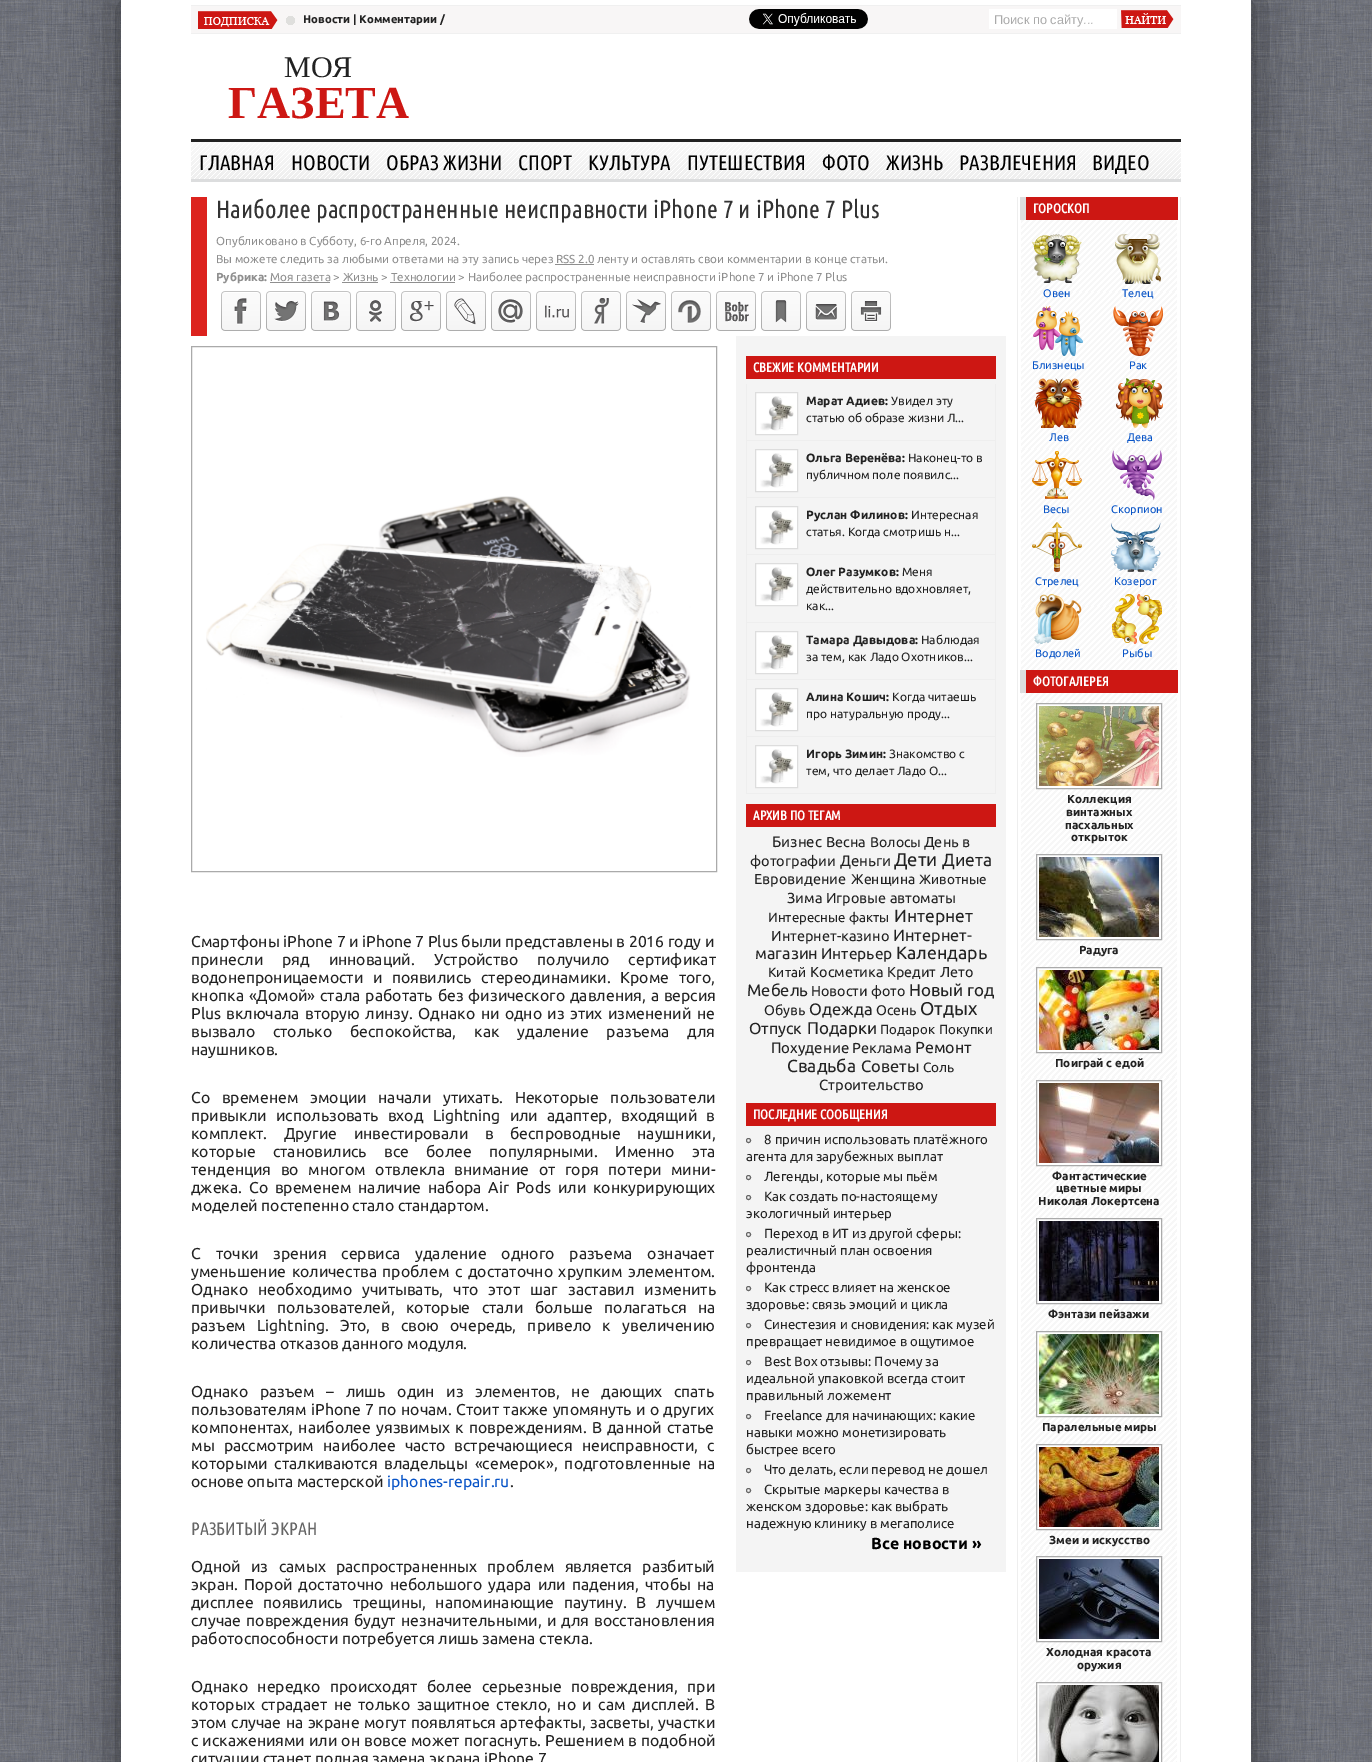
%!PS
<< /PageSize [1372 1762] /PageUsesTransparency true >> setpagedevice
/mt/moveto load def
/li/lineto load def
/cp/closepath load def
/fl/fill load def
/st/stroke load def
/gs/gsave load def
/gr/grestore load def
/co { dup -16 bitshift 255 div exch dup -8 bitshift 255 and 255 div exch 255 and 255 div setrgbcolor } def
/fn { [ exch dup neg 0 0 3 -1 roll 0 0 ] selectfont } def
/tx { co fn moveto show } def
/bx { co rectfill } def
/al { dup .setfillconstantalpha .setstrokeconstantalpha } def
/ci { newpath 0 360 arc closepath } def
/rr { 5 dict begin { /r /h /w /y /x } { exch def } forall
  x r add y moveto x w add y 2 copy h add r arct x w add y h add x 1 index r arct
  x y h add x y r arct x y 2 copy exch w add exch r arct closepath end } def
/sh { 12 dict begin { /a /b /q /h /w /y /x } { exch def } forall gsave /was 0 def
  9 -2 -9 { dup b mul 4 div /e exch def 1 sub .425 mul 2.718 exch exp 1 add a .99 .min exch div /now exch def
    1 1 now sub 1 was sub div sub al /was now def
    w h .min e 2 mul add 0 gt { x e sub y e sub w e 2 mul add h e 2 mul add
      q e add b .6 mul add w h .min 2 div e add .min 0 .max rr fill } if } for grestore end } def
/im { 5 dict begin { /h /w /y /x /name } { exch def } forall
  gsave x y translate w h scale
  w h 8 [w 0 0 h 0 0] name (r) file false 3 colorimage grestore end } def
0 .pushpdf14devicefilter
0 1762 translate 1 -1 scale
4 setmiterlimit
0 0 1372 1762 16#FFFFFF bx
(media/1.raw) 0 0 1372 1762 im
16#000000 co
121 0 1130 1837 0 25 .5 sh
121 0 1130 1762 16#FFFFFF bx
191 6 990 27 16#F8F6F6 bx
191 5 990 1 16#F0F0F0 bx
191 33 990 1 16#F0F0F0 bx
(media/2.raw) 198 11 97 18 im
(media/3.raw) 749 9 119 20 im
989 9 128 20 16#FFFFFF bx
(media/4.raw) 1121 10 53 18 im
191 139 990 3 16#222222 bx
(media/5.raw) 191 142 990 37 im
191 179 990 3 16#DCDDDE bx
191 197 16 139 16#DC231E bx
555 264 39 1 16#8F8F8F bx
270 282 60 1 16#8F8F8F bx
342 282 36 1 16#8F8F8F bx
390 282 65 1 16#8F8F8F bx
(media/6.raw) 221 291 40 40 im
(media/7.raw) 266 291 40 40 im
(media/8.raw) 311 291 40 40 im
(media/9.raw) 356 291 40 40 im
(media/10.raw) 401 291 40 40 im
(media/11.raw) 446 291 40 40 im
(media/12.raw) 491 291 40 40 im
(media/13.raw) 536 291 40 40 im
(media/14.raw) 581 291 40 40 im
(media/15.raw) 626 291 40 40 im
(media/16.raw) 671 291 40 40 im
(media/17.raw) 716 291 40 40 im
(media/18.raw) 761 291 40 40 im
(media/19.raw) 806 291 40 40 im
(media/20.raw) 851 291 40 40 im
16#AAAAAA co
191.5 346.5 525 525 rectstroke
(media/21.raw) 206 496 485 261 im
736 336 270 1236 16#F4F4F4 bx
746 356 250 23 16#CD1713 bx
995 384 1 410 16#EEEEEE bx
746 440 250 1 16#EEEEEE bx
746 384 1 57 16#EEEEEE bx
16#FFFFFF co
755.5 392.5 mt 797.5 392.5 li 797.5 434.5 li 755.5 434.5 li cp gs fl gr
16#DDDDDD co
st
(media/22.raw) 760 396 34 35 im
746 497 250 1 16#EEEEEE bx
746 441 1 57 16#EEEEEE bx
16#FFFFFF co
755.5 449.5 mt 797.5 449.5 li 797.5 491.5 li 755.5 491.5 li cp gs fl gr
16#DDDDDD co
st
(media/22.raw) 760 453 34 35 im
746 554 250 1 16#EEEEEE bx
746 498 1 57 16#EEEEEE bx
16#FFFFFF co
755.5 506.5 mt 797.5 506.5 li 797.5 548.5 li 755.5 548.5 li cp gs fl gr
16#DDDDDD co
st
(media/22.raw) 760 510 34 35 im
746 622 250 1 16#EEEEEE bx
746 555 1 68 16#EEEEEE bx
16#FFFFFF co
755.5 563.5 mt 797.5 563.5 li 797.5 605.5 li 755.5 605.5 li cp gs fl gr
16#DDDDDD co
st
(media/22.raw) 760 567 34 35 im
746 679 250 1 16#EEEEEE bx
746 623 1 57 16#EEEEEE bx
16#FFFFFF co
755.5 631.5 mt 797.5 631.5 li 797.5 673.5 li 755.5 673.5 li cp gs fl gr
16#DDDDDD co
st
(media/22.raw) 760 635 34 35 im
746 736 250 1 16#EEEEEE bx
746 680 1 57 16#EEEEEE bx
16#FFFFFF co
755.5 688.5 mt 797.5 688.5 li 797.5 730.5 li 755.5 730.5 li cp gs fl gr
16#DDDDDD co
st
(media/22.raw) 760 692 34 35 im
746 793 250 1 16#EEEEEE bx
746 737 1 57 16#EEEEEE bx
16#FFFFFF co
755.5 745.5 mt 797.5 745.5 li 797.5 787.5 li 755.5 787.5 li cp gs fl gr
16#DDDDDD co
st
(media/22.raw) 760 749 34 35 im
746 804 250 23 16#CD1713 bx
746 1103 250 23 16#CD1713 bx
16#666666 co
748.5 1140.5 2 ci st
748.5 1177.5 2 ci st
748.5 1197.5 2 ci st
748.5 1234.5 2 ci st
748.5 1288.5 2 ci st
748.5 1325.5 2 ci st
748.5 1362.5 2 ci st
748.5 1416.5 2 ci st
748.5 1470.5 2 ci st
748.5 1490.5 2 ci st
(media/23.raw) 1017 197 164 1565 im
1026 197 152 23 16#CD1713 bx
1020 197 6 23 16#DCDDDE bx
(media/24.raw) 1032 234 50 49 im
(media/25.raw) 1115 234 46 50 im
(media/26.raw) 1033 306 50 50 im
(media/27.raw) 1113 306 50 50 im
(media/28.raw) 1034 378 50 50 im
(media/29.raw) 1116 378 47 50 im
(media/30.raw) 1032 451 50 48 im
(media/31.raw) 1112 450 50 50 im
(media/32.raw) 1032 522 50 50 im
(media/33.raw) 1111 522 50 50 im
(media/34.raw) 1034 594 48 50 im
(media/35.raw) 1112 594 50 50 im
1026 670 152 23 16#CD1713 bx
1020 670 6 23 16#DCDDDE bx
16#FFFFFF co
1036.5 703.5 mt 1161.5 703.5 li 1161.5 788.5 li 1036.5 788.5 li cp gs fl gr
16#AAAAAA co
st
(media/36.raw) 1039 706 120 80 im
16#FFFFFF co
1036.5 854.5 mt 1161.5 854.5 li 1161.5 939.5 li 1036.5 939.5 li cp gs fl gr
16#AAAAAA co
st
(media/37.raw) 1039 857 120 80 im
16#FFFFFF co
1036.5 967.5 mt 1161.5 967.5 li 1161.5 1052.5 li 1036.5 1052.5 li cp gs fl gr
16#AAAAAA co
st
(media/38.raw) 1039 970 120 80 im
16#FFFFFF co
1036.5 1080.5 mt 1161.5 1080.5 li 1161.5 1165.5 li 1036.5 1165.5 li cp gs fl gr
16#AAAAAA co
st
(media/39.raw) 1039 1083 120 80 im
16#FFFFFF co
1036.5 1218.5 mt 1161.5 1218.5 li 1161.5 1303.5 li 1036.5 1303.5 li cp gs fl gr
16#AAAAAA co
st
(media/40.raw) 1039 1221 120 80 im
16#FFFFFF co
1036.5 1331.5 mt 1161.5 1331.5 li 1161.5 1416.5 li 1036.5 1416.5 li cp gs fl gr
16#AAAAAA co
st
(media/41.raw) 1039 1334 120 80 im
16#FFFFFF co
1036.5 1444.5 mt 1161.5 1444.5 li 1161.5 1529.5 li 1036.5 1529.5 li cp gs fl gr
16#AAAAAA co
st
(media/42.raw) 1039 1447 120 80 im
16#FFFFFF co
1036.5 1556.5 mt 1161.5 1556.5 li 1161.5 1641.5 li 1036.5 1641.5 li cp gs fl gr
16#AAAAAA co
st
(media/43.raw) 1039 1559 120 80 im
16#FFFFFF co
1036.5 1682.5 mt 1161.5 1682.5 li 1161.5 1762.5 li 1036.5 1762.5 li cp gs fl gr
16#AAAAAA co
st
(media/44.raw) 1039 1685 120 77 im
(Новости | Комментарии /) 303 23 /Ubuntu-Bold 11.25 16#222222 tx
(Поиск по сайту...) 994 24 /LiberationSans-Regular 12.75 16#AAAAAA tx
(МОЯ) 284 77 /LiberationSerif-Regular 30 16#222222 tx
(ГАЗЕТА) 228 118 /LiberationSerif-Bold 46 16#CD1713 tx
(ГЛАВНАЯ) 199 170 /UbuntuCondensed-Regular 21 16#000000 tx
(НОВОСТИ) 291 170 /UbuntuCondensed-Regular 21 16#000000 tx
(ОБРАЗ ЖИЗНИ) 386 170 /UbuntuCondensed-Regular 21 16#000000 tx
(СПОРТ) 518 170 /UbuntuCondensed-Regular 21 16#000000 tx
(КУЛЬТУРА) 588 170 /UbuntuCondensed-Regular 21 16#000000 tx
(ПУТЕШЕСТВИЯ) 687 170 /UbuntuCondensed-Regular 21 16#000000 tx
(ФОТО) 822 170 /UbuntuCondensed-Regular 21 16#000000 tx
(ЖИЗНЬ) 886 170 /UbuntuCondensed-Regular 21 16#000000 tx
(РАЗВЛЕЧЕНИЯ) 959 170 /UbuntuCondensed-Regular 21 16#000000 tx
(ВИДЕО) 1092 170 /UbuntuCondensed-Regular 21 16#000000 tx
(Наиболее распространенные неисправности iPhone 7 и iPhone 7 Plus) 216 218 /UbuntuCondensed-Regular 25 16#333333 tx
(Опубликовано в Субботу, 6-го Апреля, 2024.) 216 245 /Ubuntu-Regular 11.63 16#8F8F8F tx
(Вы можете следить за любыми ответами на эту запись через RSS 2.0 ленту и оставлять свои комментарии в конце статьи.) 216 263 /Ubuntu-Regular 11.63 16#8F8F8F tx
(Рубрика:) 216 281 /Ubuntu-Bold 11.63 16#8F8F8F tx
(Моя газета > Жизнь > Технологии > Наиболее распространенные неисправности iPhone 7 и iPhone 7 Plus) 270 281 /Ubuntu-Regular 11.63 16#8F8F8F tx
(Смартфоны iPhone 7 и iPhone 7 Plus были представлены в 2016 году и) 191 947 /Ubuntu-Regular 15.75 16#222222 tx
191 965 mt 15.5 0 32 (принесли ряд инноваций. Устройство получило сертификат) widthshow
191 983 mt 6 0 32 (водонепроницаемости и появились стереодинамики. Кроме того,) widthshow
191 1001 mt 1.25 0 32 (кнопка «Домой» стала работать без физического давления, а версия) widthshow
(Plus) 191 1019 /Ubuntu-Regular 15.75 16#222222 tx
226 1019 mt 1.75 0 32 (включала вторую линзу. Однако ни одно из этих изменений не) widthshow
191 1037 mt 14.25 0 32 (вызвало столько беспокойства, как удаление разъема для) widthshow
(наушников.) 191 1055 /Ubuntu-Regular 15.75 16#222222 tx
191 1103 mt 8 0 32 (Со временем эмоции начали утихать. Некоторые пользователи) widthshow
191 1121 mt 5.75 0 32 (привыкли использовать вход Lightning или адаптер, входящий в) widthshow
191 1139 mt 13 0 32 (комплект. Другие инвестировали в беспроводные наушники,) widthshow
191 1157 mt 13.75 0 32 (которые становились все более популярными. Именно эта) widthshow
191 1175 mt 6 0 32 (тенденция во многом отвлекла внимание от горя потери мини-) widthshow
191 1193 mt 3.25 0 32 (джека. Со временем наличие набора Air Pods или конкурирующих) widthshow
(моделей постепенно стало стандартом.) 191 1211 /Ubuntu-Regular 15.75 16#222222 tx
191 1259 mt 11.25 0 32 (С точки зрения сервиса удаление одного разъема означает) widthshow
191 1277 mt 2 0 32 (уменьшение количества проблем с достаточно хрупким элементом.) widthshow
191 1295 mt 6.5 0 32 (Однако необходимо учитывать, что этот шаг заставил изменить) widthshow
191 1313 mt 7.75 0 32 (привычки пользователей, которые стали больше полагаться на) widthshow
191 1331 mt 7.5 0 32 (разъем Lightning. Это, в свою очередь, привело к увеличению) widthshow
(количества отказов данного модуля.) 191 1349 /Ubuntu-Regular 15.75 16#222222 tx
191 1397 mt 8 0 32 (Однако разъем – лишь один из элементов, не дающих спать) widthshow
191 1415 mt .75 0 32 (пользователям iPhone 7 по ночам. Стоит также упомянуть и о других) widthshow
191 1433 mt 1.5 0 32 (компонентах, наиболее уязвимых к повреждениям. В данной статье) widthshow
191 1451 mt 5.5 0 32 (мы рассмотрим наиболее часто встречающиеся неисправности, с) widthshow
191 1469 mt 3.25 0 32 (которыми сталкиваются владельцы «семерок», подготовленные на) widthshow
(основе опыта мастерской) 191 1487 /Ubuntu-Regular 15.75 16#222222 tx
(iphones-repair.ru) 387 1487 /Ubuntu-Regular 15.75 16#0854C7 tx
(.) 510 1487 /Ubuntu-Regular 15.75 16#222222 tx
(РАЗБИТЫЙ ЭКРАН) 191 1535 /UbuntuCondensed-Regular 18 16#666666 tx
/Ubuntu-Regular 15.75 fn
16#222222 co
191 1572 mt 6.75 0 32 (Одной из самых распространенных проблем является разбитый) widthshow
191 1590 mt 2.5 0 32 (экран. Порой достаточно небольшого удара или падения, чтобы на) widthshow
191 1608 mt 6.25 0 32 (дисплее появились трещины, напоминающие паутину. В лучшем) widthshow
191 1626 mt 1.5 0 32 (случае повреждения будут незначительными, и для восстановления) widthshow
(работоспособности потребуется лишь замена стекла.) 191 1644 /Ubuntu-Regular 15.75 16#222222 tx
191 1692 mt 5.75 0 32 (Однако нередко происходят более серьезные повреждения, при) widthshow
191 1710 mt 2.9 0 32 (которых страдает не только защитное стекло, но и сам дисплей. В) widthshow
191 1728 mt .75 0 32 (этом случае на экране могут появляться артефакты, засветы, участки) widthshow
191 1746 mt .5 0 32 (с искажениями или он вовсе может погаснуть. Решением в подобной) widthshow
(ситуации станет полная замена экрана iPhone 7) 191 1764 /Ubuntu-Regular 15.75 16#222222 tx
(СВЕЖИЕ КОММЕНТАРИИ) 753 372 /UbuntuCondensed-Bold 13.25 16#FFFFFF tx
(Марат Адиев:) 806 405 /Ubuntu-Bold 12 16#222222 tx
(Увидел эту) 891 405 /Ubuntu-Regular 12 16#222222 tx
(статью об образе жизни Л...) 806 422 /Ubuntu-Regular 12 16#222222 tx
(Ольга Веренёва:) 806 462 /Ubuntu-Bold 12 16#222222 tx
(Наконец-то в) 908 462 /Ubuntu-Regular 12 16#222222 tx
(публичном поле появилс...) 806 479 /Ubuntu-Regular 12 16#222222 tx
(Руслан Филинов:) 806 519 /Ubuntu-Bold 12 16#222222 tx
(Интересная) 911 519 /Ubuntu-Regular 12 16#222222 tx
(статья. Когда смотришь н...) 806 536 /Ubuntu-Regular 12 16#222222 tx
(Олег Разумков:) 806 576 /Ubuntu-Bold 12 16#222222 tx
(Меня) 902 576 /Ubuntu-Regular 12 16#222222 tx
(действительно вдохновляет,) 806 593 /Ubuntu-Regular 12 16#222222 tx
(как...) 806 610 /Ubuntu-Regular 12 16#222222 tx
(Тамара Давыдова:) 806 644 /Ubuntu-Bold 12 16#222222 tx
(Наблюдая) 921 644 /Ubuntu-Regular 12 16#222222 tx
(за тем, как Ладо Охотников...) 806 661 /Ubuntu-Regular 12 16#222222 tx
(Алина Кошич:) 806 701 /Ubuntu-Bold 12 16#222222 tx
(Когда читаешь) 892 701 /Ubuntu-Regular 12 16#222222 tx
(про натуральную проду...) 806 718 /Ubuntu-Regular 12 16#222222 tx
(Игорь Зимин:) 806 758 /Ubuntu-Bold 12 16#222222 tx
(Знакомство с) 889 758 /Ubuntu-Regular 12 16#222222 tx
(тем, что делает Ладо О...) 806 775 /Ubuntu-Regular 12 16#222222 tx
(АРХИВ ПО ТЕГАМ) 753 820 /UbuntuCondensed-Bold 13.25 16#FFFFFF tx
(Бизнес) 772 847 /Ubuntu-Regular 15 16#222222 tx
(Весна) 826 847 /Ubuntu-Regular 14.4 16#222222 tx
(Волосы) 870 847 /Ubuntu-Regular 14 16#222222 tx
(День в) 924 847 /Ubuntu-Regular 14.5 16#222222 tx
(фотографии) 750 866 /Ubuntu-Regular 14.5 16#222222 tx
(Деньги) 840 866 /Ubuntu-Regular 15 16#222222 tx
(Дети) 894 866 /Ubuntu-Regular 18.5 16#222222 tx
(Диета) 942 866 /Ubuntu-Regular 17.5 16#222222 tx
(Евровидение) 754 884 /Ubuntu-Regular 14.5 16#222222 tx
(Женщина) 851 884 /Ubuntu-Regular 14 16#222222 tx
(Животные) 919 884 /Ubuntu-Regular 13.5 16#222222 tx
(Зима) 787 903 /Ubuntu-Regular 14.5 16#222222 tx
(Игровые автоматы) 826 903 /Ubuntu-Regular 14.4 16#222222 tx
(Интересные факты) 768 922 /Ubuntu-Regular 13.25 16#222222 tx
(Интернет) 894 922 /Ubuntu-Regular 17.5 16#222222 tx
(Интернет-казино) 771 941 /Ubuntu-Regular 14.5 16#222222 tx
(Интернет-) 893 941 /Ubuntu-Regular 16.25 16#222222 tx
(магазин) 755 959 /Ubuntu-Regular 16.25 16#222222 tx
(Интерьер) 821 959 /Ubuntu-Regular 15.5 16#222222 tx
(Календарь) 896 959 /Ubuntu-Regular 17.75 16#222222 tx
(Китай) 768 977 /Ubuntu-Regular 13.5 16#222222 tx
(Косметика) 810 977 /Ubuntu-Regular 14.4 16#222222 tx
(Кредит) 887 977 /Ubuntu-Regular 14.25 16#222222 tx
(Лето) 940 977 /Ubuntu-Regular 14.4 16#222222 tx
(Мебель) 747 996 /Ubuntu-Regular 16.5 16#222222 tx
(Новости фото) 811 996 /Ubuntu-Regular 14.25 16#222222 tx
(Новый год) 909 996 /Ubuntu-Regular 17 16#222222 tx
(Обувь) 764 1015 /Ubuntu-Regular 14 16#222222 tx
(Одежда) 809 1015 /Ubuntu-Regular 16.5 16#222222 tx
(Осень) 876 1015 /Ubuntu-Regular 14 16#222222 tx
(Отдых) 920 1015 /Ubuntu-Regular 18.5 16#222222 tx
(Отпуск) 749 1034 /Ubuntu-Regular 16 16#222222 tx
(Подарки) 807 1034 /Ubuntu-Regular 17 16#222222 tx
(Подарок) 880 1034 /Ubuntu-Regular 13.25 16#222222 tx
(Покупки) 939 1034 /Ubuntu-Regular 13.25 16#222222 tx
(Похудение) 771 1053 /Ubuntu-Regular 15 16#222222 tx
(Реклама) 852 1053 /Ubuntu-Regular 14.5 16#222222 tx
(Ремонт) 915 1053 /Ubuntu-Regular 16 16#222222 tx
(Свадьба) 787 1072 /Ubuntu-Regular 17.5 16#222222 tx
(Советы) 861 1072 /Ubuntu-Regular 16.5 16#222222 tx
(Соль) 923 1072 /Ubuntu-Regular 13.5 16#222222 tx
(Строительство) 819 1090 /Ubuntu-Regular 14.75 16#222222 tx
(ПОСЛЕДНИЕ СООБЩЕНИЯ) 753 1119 /UbuntuCondensed-Bold 13.25 16#FFFFFF tx
(8 причин использовать платёжного) 764 1144 /Ubuntu-Regular 13.25 16#222222 tx
(агента для зарубежных выплат) 746 1161 /Ubuntu-Regular 13.25 16#222222 tx
(Легенды, которые мы пьём) 764 1181 /Ubuntu-Regular 13.25 16#222222 tx
(Как создать по-настоящему) 764 1201 /Ubuntu-Regular 13.25 16#222222 tx
(экологичный интерьер) 746 1218 /Ubuntu-Regular 13.25 16#222222 tx
(Переход в ИТ из другой сферы:) 764 1238 /Ubuntu-Regular 13.25 16#222222 tx
(реалистичный план освоения) 746 1255 /Ubuntu-Regular 13.25 16#222222 tx
(фронтенда) 746 1272 /Ubuntu-Regular 13.25 16#222222 tx
(Как стресс влияет на женское) 764 1292 /Ubuntu-Regular 13.25 16#222222 tx
(здоровье: связь эмоций и цикла) 746 1309 /Ubuntu-Regular 13.25 16#222222 tx
(Синестезия и сновидения: как музей) 764 1329 /Ubuntu-Regular 13.25 16#222222 tx
(превращает невидимое в ощутимое) 746 1346 /Ubuntu-Regular 13.25 16#222222 tx
(Best Box отзывы: Почему за) 764 1366 /Ubuntu-Regular 13.25 16#222222 tx
(идеальной упаковкой всегда стоит) 746 1383 /Ubuntu-Regular 13.25 16#222222 tx
(правильный ложемент) 746 1400 /Ubuntu-Regular 13.25 16#222222 tx
(Freelance для начинающих: какие) 764 1420 /Ubuntu-Regular 13.25 16#222222 tx
(навыки можно монетизировать) 746 1437 /Ubuntu-Regular 13.25 16#222222 tx
(быстрее всего) 746 1454 /Ubuntu-Regular 13.25 16#222222 tx
(Что делать, если перевод не дошел) 764 1474 /Ubuntu-Regular 13.25 16#222222 tx
(Скрытые маркеры качества в) 764 1494 /Ubuntu-Regular 13.25 16#222222 tx
(женском здоровье: как выбрать) 746 1511 /Ubuntu-Regular 13.25 16#222222 tx
(надежную клинику в мегаполисе) 746 1528 /Ubuntu-Regular 13.25 16#222222 tx
(Все новости ») 871 1549 /Ubuntu-Bold 16 16#000000 tx
(ГОРОСКОП) 1033 213 /UbuntuCondensed-Bold 13.25 16#FFFFFF tx
(Овен) 1043 297 /Ubuntu-Regular 11 16#0854C7 tx
(Телец) 1122 297 /Ubuntu-Regular 11 16#0854C7 tx
(Близнецы) 1032 369 /Ubuntu-Regular 11 16#0854C7 tx
(Рак) 1129 369 /Ubuntu-Regular 11 16#0854C7 tx
(Лев) 1049 441 /Ubuntu-Regular 11 16#0854C7 tx
(Дева) 1127 441 /Ubuntu-Regular 11 16#0854C7 tx
(Весы) 1043 513 /Ubuntu-Regular 11 16#0854C7 tx
(Скорпион) 1111 513 /Ubuntu-Regular 11 16#0854C7 tx
(Стрелец) 1035 585 /Ubuntu-Regular 11 16#0854C7 tx
(Козерог) 1114 585 /Ubuntu-Regular 11 16#0854C7 tx
(Водолей) 1035 657 /Ubuntu-Regular 11 16#0854C7 tx
(Рыбы) 1122 657 /Ubuntu-Regular 11 16#0854C7 tx
(ФОТОГАЛЕРЕЯ) 1033 686 /UbuntuCondensed-Bold 13.25 16#FFFFFF tx
(Коллекция) 1067 803 /Ubuntu-Bold 11.63 16#222222 tx
(винтажных) 1066 816 /Ubuntu-Bold 11.63 16#222222 tx
(пасхальных) 1065 829 /Ubuntu-Bold 11.63 16#222222 tx
(открыток) 1071 841 /Ubuntu-Bold 11.63 16#222222 tx
(Радуга) 1079 954 /Ubuntu-Bold 11.63 16#222222 tx
(Поиграй с едой) 1055 1067 /Ubuntu-Bold 11.63 16#222222 tx
(Фантастические) 1052 1180 /Ubuntu-Bold 11.63 16#222222 tx
(цветные миры) 1056 1192 /Ubuntu-Bold 11.63 16#222222 tx
(Николая Локертсена) 1038 1205 /Ubuntu-Bold 11.63 16#222222 tx
(Фэнтази пейзажи) 1048 1318 /Ubuntu-Bold 11.63 16#222222 tx
(Паралельные миры) 1042 1431 /Ubuntu-Bold 11.63 16#222222 tx
(Змеи и искусство) 1049 1544 /Ubuntu-Bold 11.63 16#222222 tx
(Холодная красота) 1046 1656 /Ubuntu-Bold 11.63 16#222222 tx
(оружия) 1077 1669 /Ubuntu-Bold 11.63 16#222222 tx
.poppdf14devicefilter showpage
